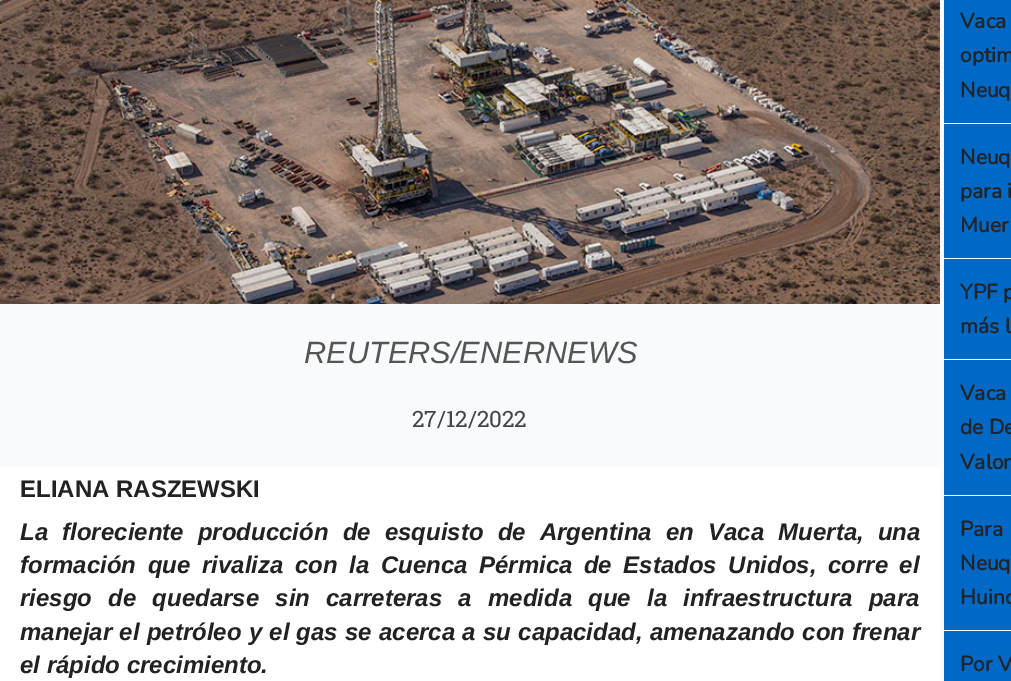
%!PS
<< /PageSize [1011 681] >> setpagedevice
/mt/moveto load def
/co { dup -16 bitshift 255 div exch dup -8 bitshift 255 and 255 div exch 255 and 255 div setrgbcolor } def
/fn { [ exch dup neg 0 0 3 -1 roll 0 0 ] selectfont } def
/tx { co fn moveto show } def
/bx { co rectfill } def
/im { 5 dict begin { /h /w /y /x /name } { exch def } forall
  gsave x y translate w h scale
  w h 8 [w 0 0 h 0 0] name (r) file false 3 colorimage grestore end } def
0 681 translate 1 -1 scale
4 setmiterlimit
0 0 1011 681 16#F8FAFC bx
(media/1.raw) 0 0 940 304 im
0 467 940 214 16#FFFFFF bx
944 0 67 681 16#0069C6 bx
944 123 67 1 16#FFFFFF bx
944 258 67 1 16#FFFFFF bx
944 359 67 1 16#FFFFFF bx
944 495 67 1 16#FFFFFF bx
944 630 67 1 16#FFFFFF bx
(REUTERS/ENERNEWS) 304 363 /LiberationSans-Italic 30.75 16#555555 tx
(27/12/2022) 412 427 /RobotoSlab-Regular 22.5 16#444444 tx
(ELIANA RASZEWSKI) 20 497 /LiberationSans-Bold 24 16#222222 tx
/LiberationSans-BoldItalic 24 fn
20 540 mt 7.5 0 32 (La floreciente producción de esquisto de Argentina en Vaca Muerta, una) widthshow
20 573 mt 4.9 0 32 (formación que rivaliza con la Cuenca Pérmica de Estados Unidos, corre el) widthshow
20 606 mt 9.5 0 32 (riesgo de quedarse sin carreteras a medida que la infraestructura para) widthshow
20 640 mt .6 0 32 (manejar el petróleo y el gas se acerca a su capacidad, amenazando con frenar) widthshow
(el rápido crecimiento.) 20 673 /LiberationSans-BoldItalic 24 16#222222 tx
(Vaca) 960 28 /Nunito-Bold 21 16#212529 tx
(optim) 960 62 /Nunito-Bold 21 16#212529 tx
(Neuq) 960 97 /Nunito-Bold 21 16#212529 tx
(Neuq) 960 164 /Nunito-Bold 21 16#212529 tx
(para i) 960 198 /Nunito-Bold 21 16#212529 tx
(Muer) 960 232 /Nunito-Bold 21 16#212529 tx
(YPF p) 960 299 /Nunito-Bold 21 16#212529 tx
(más l) 960 333 /Nunito-Bold 21 16#212529 tx
(Vaca) 960 400 /Nunito-Bold 21 16#212529 tx
(de De) 960 434 /Nunito-Bold 21 16#212529 tx
(Valor) 960 469 /Nunito-Bold 21 16#212529 tx
(Para) 960 536 /Nunito-Bold 21 16#212529 tx
(Neuq) 960 570 /Nunito-Bold 21 16#212529 tx
(Huinc) 960 604 /Nunito-Bold 21 16#212529 tx
(Por V) 960 671 /Nunito-Bold 21 16#212529 tx
showpage
